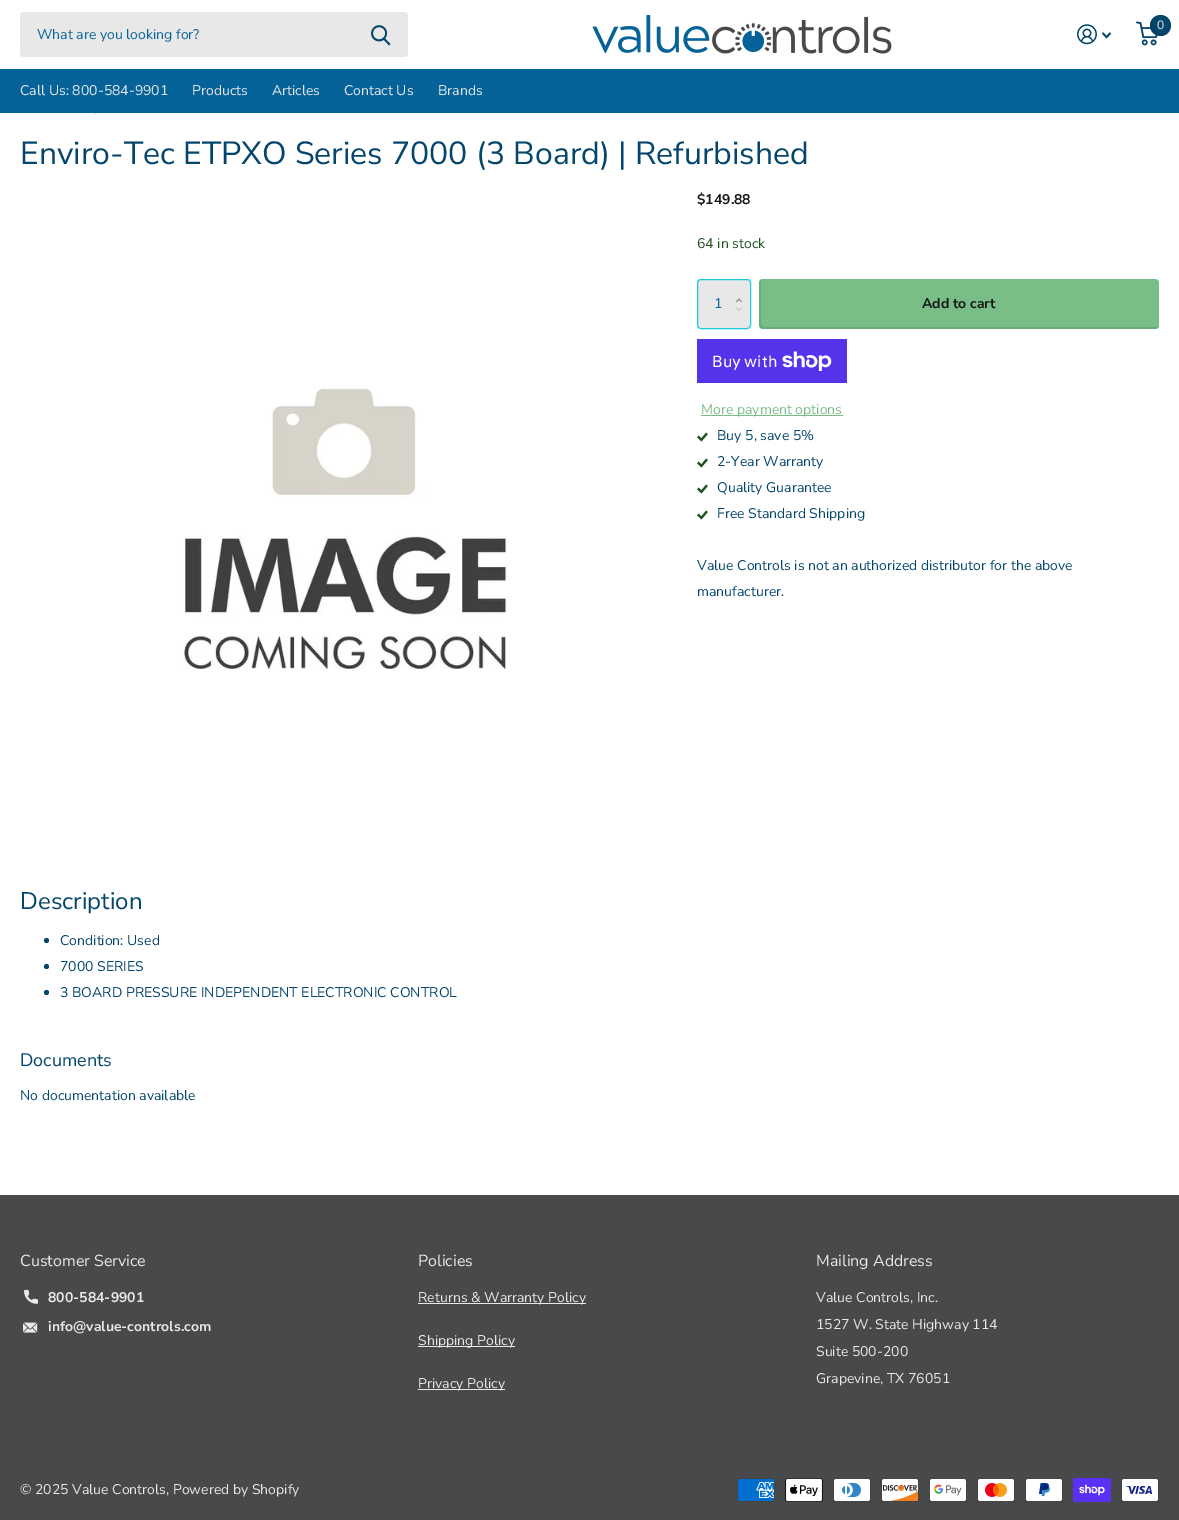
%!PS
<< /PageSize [1179 1520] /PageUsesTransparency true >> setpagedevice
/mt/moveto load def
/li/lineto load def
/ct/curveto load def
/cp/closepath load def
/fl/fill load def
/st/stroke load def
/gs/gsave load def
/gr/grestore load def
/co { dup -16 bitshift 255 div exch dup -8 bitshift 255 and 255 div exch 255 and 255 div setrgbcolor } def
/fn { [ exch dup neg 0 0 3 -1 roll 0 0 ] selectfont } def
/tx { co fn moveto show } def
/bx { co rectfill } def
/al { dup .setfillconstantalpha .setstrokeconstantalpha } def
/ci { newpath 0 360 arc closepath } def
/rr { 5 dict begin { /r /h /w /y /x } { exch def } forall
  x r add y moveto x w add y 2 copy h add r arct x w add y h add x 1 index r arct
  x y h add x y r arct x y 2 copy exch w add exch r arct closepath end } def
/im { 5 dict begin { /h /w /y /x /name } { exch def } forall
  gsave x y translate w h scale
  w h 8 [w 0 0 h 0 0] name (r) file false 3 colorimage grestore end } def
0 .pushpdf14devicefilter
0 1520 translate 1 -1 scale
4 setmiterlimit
0 0 1179 1520 16#FFFFFF bx
(media/1.raw) 1077 24 20 21 im
(media/2.raw) 1102 32 9 7 im
(media/3.raw) 1136 21 22 25 im
16#04456B co
1160.5 25.5 10.5 ci fl
0.1 al
16#000000 co
1169 31.5 mt 1167.5 33 1165 34 1162 34 ct 1153 34 1150 23.5 1154 17.5 ct 1149 21 1148.5 28.5 1153 33 ct 1157.5 37.5 1165.5 37 1169 31.5 ct cp fl
1 al
16#E8E8E8 co
20 12 388 45 4 rr fl
(media/4.raw) 371 25 20 21 im
(media/5.raw) 592 15 300 39 im
0 69 1179 44 16#066399 bx
(media/6.raw) 94 113 3 2 im
16#E8E8E8 co
697.5 279.5 53 49 3.5 rr gs fl gr
16#1ACCDC co
st
(media/7.raw) 736 298 6 5 im
(media/8.raw) 736 307 6 4 im
16#79BD87 co
759 279 400 50 4 rr fl
0.1 al
16#000000 co
761 279 mt 760 280 759 281 759 283 ct 759 325 li 759 327 761 329 763 329 ct 1155 329 li 1157 329 1158 328 1159 327 ct 1157 327 li 765 327 li 763 327 761 325 761 323 ct 761 281 li cp fl
1 al
697 339 150 44 16#5433EB bx
(media/9.raw) 782 351 50 20 im
701 415 142 1 16#79BD87 bx
(media/10.raw) 697 432 11 10 im
(media/10.raw) 697 458 11 10 im
(media/10.raw) 697 484 11 10 im
(media/10.raw) 697 510 11 10 im
(media/11.raw) 183 387 325 282 im
16#04456B co
46.5 940.5 2.5 ci fl
46.5 966.5 2.5 ci fl
46.5 992.5 2.5 ci fl
0 1195 1179 325 16#48494B bx
(media/12.raw) 24 1289 14 15 im
(media/13.raw) 23 1322 15 11 im
418 1303 168 1 16#E8E8E8 bx
418 1346 97 1 16#E8E8E8 bx
418 1389 87 1 16#E8E8E8 bx
(media/14.raw) 737 1478 38 24 im
(media/15.raw) 785 1478 38 24 im
(media/16.raw) 833 1478 38 24 im
(media/17.raw) 881 1478 38 24 im
(media/18.raw) 929 1478 38 24 im
(media/19.raw) 977 1478 38 24 im
(media/20.raw) 1025 1478 38 24 im
(media/21.raw) 1073 1478 38 24 im
(media/22.raw) 1121 1478 38 24 im
(0) 1157 29 /NunitoSans-Regular 12 16#E8E8E8 tx
(What are you looking for?) 37 39 /NunitoSans-Regular 14 16#066399 tx
(Call Us: 800-584-9901) 20 95 /NunitoSans-Regular 14 16#E8E8E8 tx
(Products) 192 95 /NunitoSans-Regular 14 16#E8E8E8 tx
(Articles) 272 95 /NunitoSans-Regular 14 16#E8E8E8 tx
(Contact Us) 344 95 /NunitoSans-Regular 14 16#E8E8E8 tx
(Brands) 438 95 /NunitoSans-Regular 14 16#E8E8E8 tx
(Enviro-Tec ETPXO Series 7000 \(3 Board\) | Refurbished) 20 164 /NunitoSans-Regular 32 16#04456B tx
($149.88) 697 204 /NunitoSans-Bold 14 16#161718 tx
(64 in stock) 697 248 /NunitoSans-Regular 14 16#1F501F tx
(1) 714 308 /NunitoSans-Regular 14 16#066399 tx
(Add to cart) 922 308 /NunitoSans-Bold 14 16#161718 tx
(Buy with) 712 367 /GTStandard-Regular 16 16#FFFFFF tx
(More payment options) 701 414 /NunitoSans-Regular 14 16#79BD87 tx
(Buy 5, save 5%) 717 440 /NunitoSans-Regular 14 16#04456B tx
(2-Year Warranty) 717 466 /NunitoSans-Regular 14 16#04456B tx
(Quality Guarantee) 717 492 /NunitoSans-Regular 14 16#04456B tx
(Free Standard Shipping) 717 518 /NunitoSans-Regular 14 16#04456B tx
(Value Controls is not an authorized distributor for the above) 697 570 /NunitoSans-Regular 14 16#04456B tx
(manufacturer.) 697 596 /NunitoSans-Regular 14 16#04456B tx
(Description) 20 909 /NunitoSans-Regular 24 16#04456B tx
(Condition: Used) 60 945 /NunitoSans-Regular 14 16#04456B tx
(7000 SERIES) 60 971 /NunitoSans-Regular 14 16#04456B tx
(3 BOARD PRESSURE INDEPENDENT ELECTRONIC CONTROL) 60 997 /NunitoSans-Regular 14 16#04456B tx
(Documents) 20 1066 /NunitoSans-Regular 18 16#04456B tx
(No documentation available) 20 1100 /NunitoSans-Regular 14 16#04456B tx
(Customer Service) 20 1266 /NunitoSans-Regular 16 16#E8E8E8 tx
(800-584-9901) 48 1302 /NunitoSans-Bold 14 16#E8E8E8 tx
(info@value-controls.com) 48 1331 /NunitoSans-Bold 14 16#E8E8E8 tx
(Policies) 418 1266 /NunitoSans-Regular 16 16#E8E8E8 tx
(Returns & Warranty Policy) 418 1302 /NunitoSans-Regular 14 16#E8E8E8 tx
(Shipping Policy) 418 1345 /NunitoSans-Regular 14 16#E8E8E8 tx
(Privacy Policy) 418 1388 /NunitoSans-Regular 14 16#E8E8E8 tx
(Mailing Address) 816 1266 /NunitoSans-Regular 16 16#E8E8E8 tx
(Value Controls, Inc.) 816 1302 /NunitoSans-Regular 14 16#E8E8E8 tx
(1527 W. State Highway 114) 816 1329 /NunitoSans-Regular 14 16#E8E8E8 tx
(Suite 500-200) 816 1356 /NunitoSans-Regular 14 16#E8E8E8 tx
(Grapevine, TX 76051) 816 1383 /NunitoSans-Regular 14 16#E8E8E8 tx
(© 2025 Value Controls, Powered by Shopify) 20 1494 /NunitoSans-Regular 14 16#E8E8E8 tx
.poppdf14devicefilter showpage
